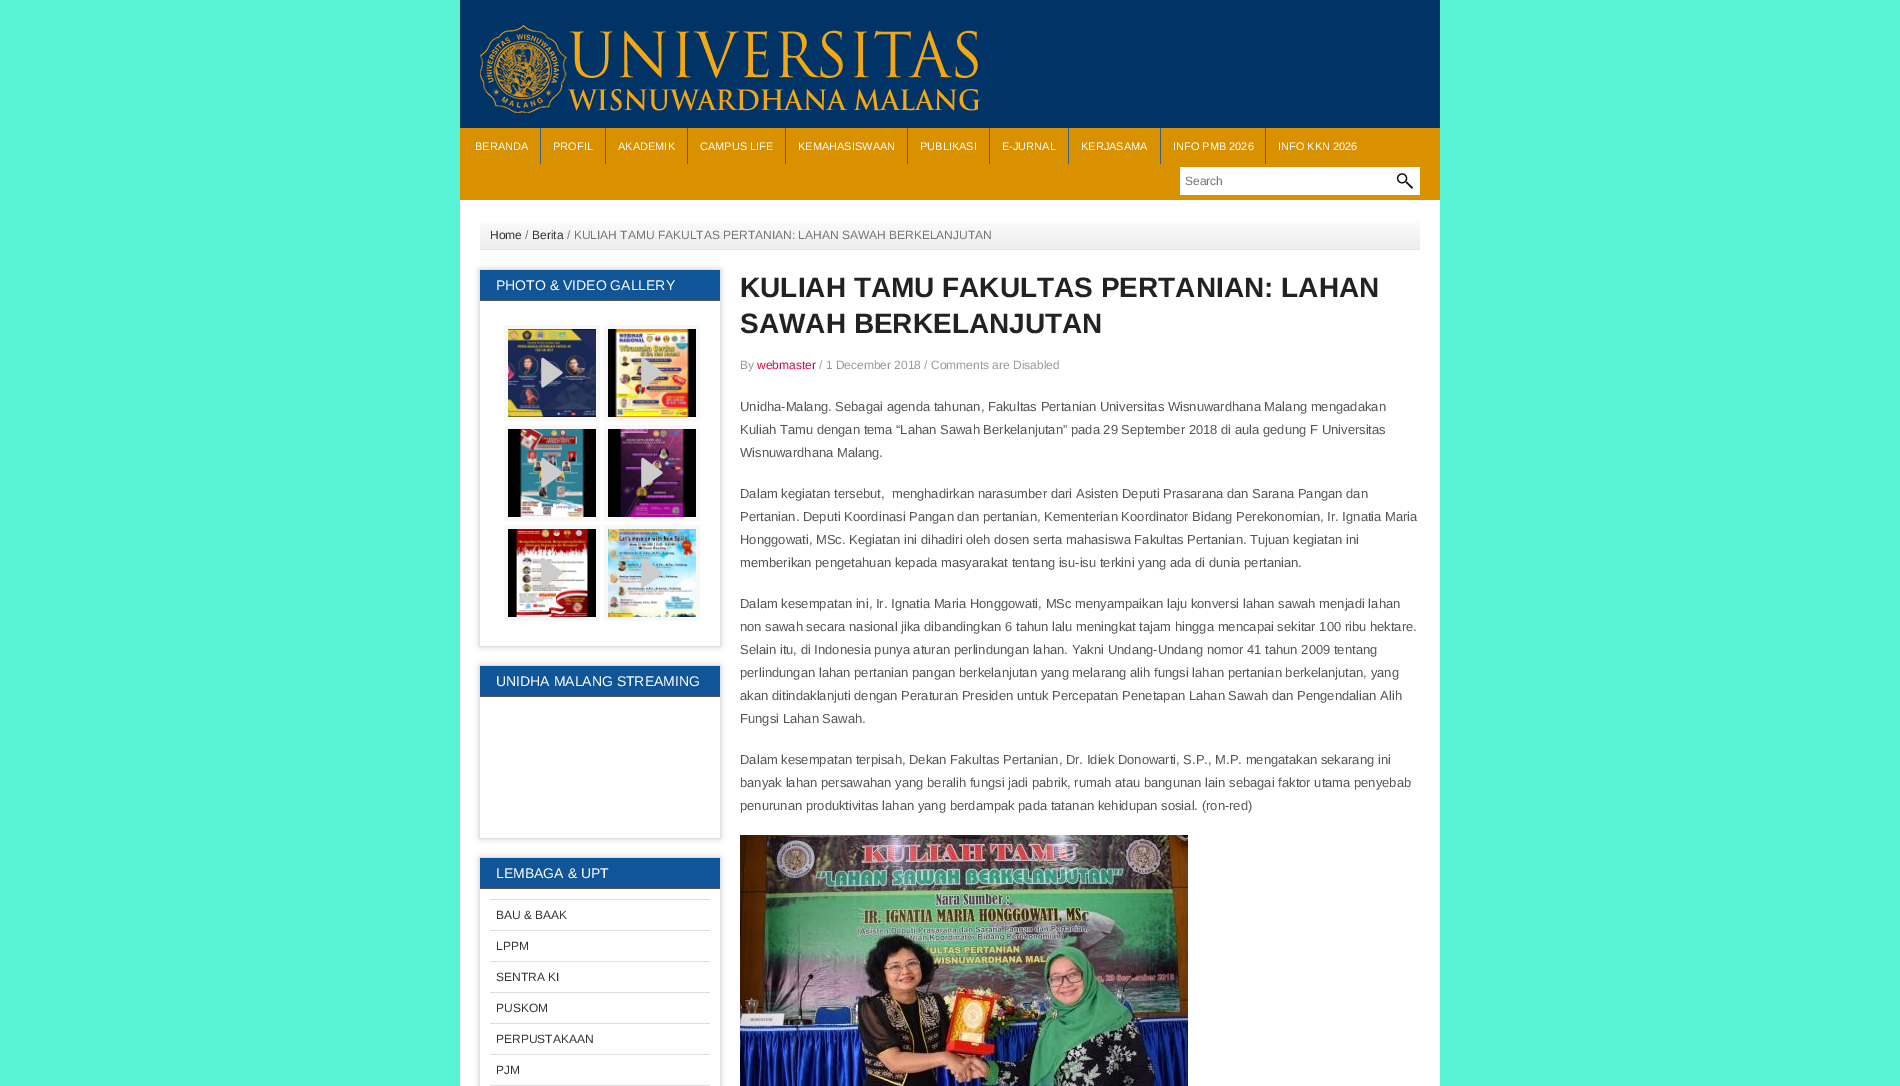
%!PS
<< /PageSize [1900 1086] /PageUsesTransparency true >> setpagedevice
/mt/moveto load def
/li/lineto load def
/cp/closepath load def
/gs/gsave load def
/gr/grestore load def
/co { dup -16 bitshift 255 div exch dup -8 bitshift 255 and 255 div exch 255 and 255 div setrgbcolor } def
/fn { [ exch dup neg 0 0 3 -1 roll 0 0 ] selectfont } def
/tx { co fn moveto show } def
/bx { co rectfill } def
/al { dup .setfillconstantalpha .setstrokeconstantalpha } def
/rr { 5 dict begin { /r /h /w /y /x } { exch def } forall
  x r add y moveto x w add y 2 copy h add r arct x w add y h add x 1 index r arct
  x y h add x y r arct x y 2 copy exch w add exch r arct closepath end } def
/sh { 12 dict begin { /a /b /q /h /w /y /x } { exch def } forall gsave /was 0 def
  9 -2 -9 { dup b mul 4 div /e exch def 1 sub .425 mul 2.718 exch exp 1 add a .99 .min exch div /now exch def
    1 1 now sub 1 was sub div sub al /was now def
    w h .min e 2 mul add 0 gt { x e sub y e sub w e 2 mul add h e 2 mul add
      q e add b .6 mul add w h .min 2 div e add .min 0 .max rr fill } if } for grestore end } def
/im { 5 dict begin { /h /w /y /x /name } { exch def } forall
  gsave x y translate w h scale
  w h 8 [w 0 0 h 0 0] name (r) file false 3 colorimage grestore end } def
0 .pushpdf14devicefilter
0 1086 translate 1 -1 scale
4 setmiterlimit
0 0 1900 1086 16#58F4D5 bx
460 0 980 128 16#003366 bx
(media/1.raw) 480 25 500 88 im
460 128 980 72 16#DA9100 bx
540 128 1 36 16#385E8A bx
605 128 1 36 16#385E8A bx
687 128 1 36 16#385E8A bx
785 128 1 36 16#385E8A bx
907 128 1 36 16#385E8A bx
989 128 1 36 16#385E8A bx
1068 128 1 36 16#385E8A bx
1160 128 1 36 16#385E8A bx
1265 128 1 36 16#385E8A bx
1180 167 240 28 16#FFFFFF bx
(media/2.raw) 1397 173 16 16 im
460 200 980 886 16#FFFFFF bx
(media/3.raw) 480 222 940 28 im
gs
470 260 mt 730 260 li 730 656 li 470 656 li cp 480 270 mt 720 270 li 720 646 li 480 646 li cp eoclip newpath
16#BBBBBB co
480 270 240 376 0 3 1 sh
gr
480 270 240 30 16#115599 bx
480 300 240 1 16#555555 bx
504 325 96 96 16#F8F8F8 bx
(media/4.raw) 508 329 88 88 im
(media/5.raw) 541 357 22 31 im
604 325 96 96 16#F8F8F8 bx
(media/6.raw) 608 329 88 88 im
(media/7.raw) 641 357 22 31 im
504 425 96 96 16#F8F8F8 bx
(media/8.raw) 508 429 88 88 im
(media/9.raw) 541 457 22 31 im
604 425 96 96 16#F8F8F8 bx
(media/10.raw) 608 429 88 88 im
(media/11.raw) 641 457 22 31 im
504 525 96 96 16#F8F8F8 bx
(media/12.raw) 508 529 88 88 im
(media/13.raw) 541 557 22 31 im
604 525 96 96 16#F8F8F8 bx
(media/14.raw) 608 529 88 88 im
(media/15.raw) 641 557 22 31 im
gs
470 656 mt 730 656 li 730 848 li 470 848 li cp 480 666 mt 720 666 li 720 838 li 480 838 li cp eoclip newpath
16#BBBBBB co
480 666 240 172 0 3 1 sh
gr
480 666 240 30 16#115599 bx
480 696 240 1 16#555555 bx
gs
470 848 mt 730 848 li 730 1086 li 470 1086 li cp 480 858 mt 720 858 li 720 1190 li 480 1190 li cp eoclip newpath
16#BBBBBB co
480 858 240 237 0 3 1 sh
gr
480 858 240 30 16#115599 bx
480 888 240 1 16#555555 bx
490 899 220 1 16#DDDDDD bx
490 930 220 1 16#DDDDDD bx
490 961 220 1 16#DDDDDD bx
490 992 220 1 16#DDDDDD bx
490 1023 220 1 16#DDDDDD bx
490 1054 220 1 16#DDDDDD bx
490 1085 220 1 16#DDDDDD bx
(media/16.raw) 740 835 448 251 im
(BERANDA) 475 150 /LiberationSans-Regular 11 16#FFFFFF tx
(PROFIL) 553 150 /LiberationSans-Regular 11 16#FFFFFF tx
(AKADEMIK) 618 150 /LiberationSans-Regular 11 16#FFFFFF tx
(CAMPUS LIFE) 700 150 /LiberationSans-Regular 11 16#FFFFFF tx
(KEMAHASISWAAN) 798 150 /LiberationSans-Regular 11 16#FFFFFF tx
(PUBLIKASI) 920 150 /LiberationSans-Regular 11 16#FFFFFF tx
(E-JURNAL) 1002 150 /LiberationSans-Regular 11 16#FFFFFF tx
(KERJASAMA) 1081 150 /LiberationSans-Regular 11 16#FFFFFF tx
(INFO PMB 2026) 1173 150 /LiberationSans-Regular 11 16#FFFFFF tx
(INFO KKN 2026) 1278 150 /LiberationSans-Regular 11 16#FFFFFF tx
(Search) 1185 185 /LiberationSans-Regular 12 16#757575 tx
(Home) 490 239 /LiberationSans-Regular 12 16#333333 tx
(/) 525 239 /LiberationSans-Regular 12 16#757575 tx
(Berita) 532 239 /LiberationSans-Regular 12 16#333333 tx
(/ KULIAH TAMU FAKULTAS PERTANIAN: LAHAN SAWAH BERKELANJUTAN) 567 239 /LiberationSans-Regular 12 16#757575 tx
(PHOTO & VIDEO GALLERY) 496 290 /LiberationSans-Regular 14 16#FFFFFF tx
(UNIDHA MALANG STREAMING) 496 686 /LiberationSans-Regular 14 16#FFFFFF tx
(LEMBAGA & UPT) 496 878 /LiberationSans-Regular 14 16#FFFFFF tx
(BAU & BAAK) 496 919 /LiberationSans-Regular 12 16#333333 tx
(LPPM) 496 950 /LiberationSans-Regular 12 16#333333 tx
(SENTRA KI) 496 981 /LiberationSans-Regular 12 16#333333 tx
(PUSKOM) 496 1012 /LiberationSans-Regular 12 16#333333 tx
(PERPUSTAKAAN) 496 1043 /LiberationSans-Regular 12 16#333333 tx
(PJM) 496 1074 /LiberationSans-Regular 12 16#333333 tx
(KULIAH TAMU FAKULTAS PERTANIAN: LAHAN) 740 297 /LiberationSans-Bold 28 16#222222 tx
(SAWAH BERKELANJUTAN) 740 333 /LiberationSans-Bold 28 16#222222 tx
(By) 740 369 /LiberationSans-Regular 12 16#999999 tx
(webmaster) 757 369 /LiberationSans-Regular 12 16#CB0E3D tx
(/ 1 December 2018 / Comments are Disabled) 819 369 /LiberationSans-Regular 12 16#999999 tx
(Unidha-Malang. Sebagai agenda tahunan, Fakultas Pertanian Universitas Wisnuwardhana Malang mengadakan) 740 411 /LiberationSans-Regular 13 16#555555 tx
(Kuliah Tamu dengan tema “Lahan Sawah Berkelanjutan” pada 29 September 2018 di aula gedung F Universitas) 740 434 /LiberationSans-Regular 13 16#555555 tx
(Wisnuwardhana Malang.) 740 457 /LiberationSans-Regular 13 16#555555 tx
(Dalam kegiatan tersebut,  menghadirkan narasumber dari Asisten Deputi Prasarana dan Sarana Pangan dan) 740 498 /LiberationSans-Regular 13 16#555555 tx
(Pertanian. Deputi Koordinasi Pangan dan pertanian, Kementerian Koordinator Bidang Perekonomian, Ir. Ignatia Maria) 740 521 /LiberationSans-Regular 13 16#555555 tx
(Honggowati, MSc. Kegiatan ini dihadiri oleh dosen serta mahasiswa Fakultas Pertanian. Tujuan kegiatan ini) 740 544 /LiberationSans-Regular 13 16#555555 tx
(memberikan pengetahuan kepada masyarakat tentang isu-isu terkini yang ada di dunia pertanian.) 740 567 /LiberationSans-Regular 13 16#555555 tx
(Dalam kesempatan ini, Ir. Ignatia Maria Honggowati, MSc menyampaikan laju konversi lahan sawah menjadi lahan) 740 608 /LiberationSans-Regular 13 16#555555 tx
(non sawah secara nasional jika dibandingkan 6 tahun lalu meningkat tajam hingga mencapai sekitar 100 ribu hektare.) 740 631 /LiberationSans-Regular 13 16#555555 tx
(Selain itu, di Indonesia punya aturan perlindungan lahan. Yakni Undang-Undang nomor 41 tahun 2009 tentang) 740 654 /LiberationSans-Regular 13 16#555555 tx
(perlindungan lahan pertanian pangan berkelanjutan yang melarang alih fungsi lahan pertanian berkelanjutan, yang) 740 677 /LiberationSans-Regular 13 16#555555 tx
(akan ditindaklanjuti dengan Peraturan Presiden untuk Percepatan Penetapan Lahan Sawah dan Pengendalian Alih) 740 700 /LiberationSans-Regular 13 16#555555 tx
(Fungsi Lahan Sawah.) 740 723 /LiberationSans-Regular 13 16#555555 tx
(Dalam kesempatan terpisah, Dekan Fakultas Pertanian, Dr. Idiek Donowarti, S.P., M.P. mengatakan sekarang ini) 740 764 /LiberationSans-Regular 13 16#555555 tx
(banyak lahan persawahan yang beralih fungsi jadi pabrik, rumah atau bangunan lain sebagai faktor utama penyebab) 740 787 /LiberationSans-Regular 13 16#555555 tx
(penurunan produktivitas lahan yang berdampak pada tatanan kehidupan sosial. \(ron-red\)) 740 810 /LiberationSans-Regular 13 16#555555 tx
.poppdf14devicefilter showpage
